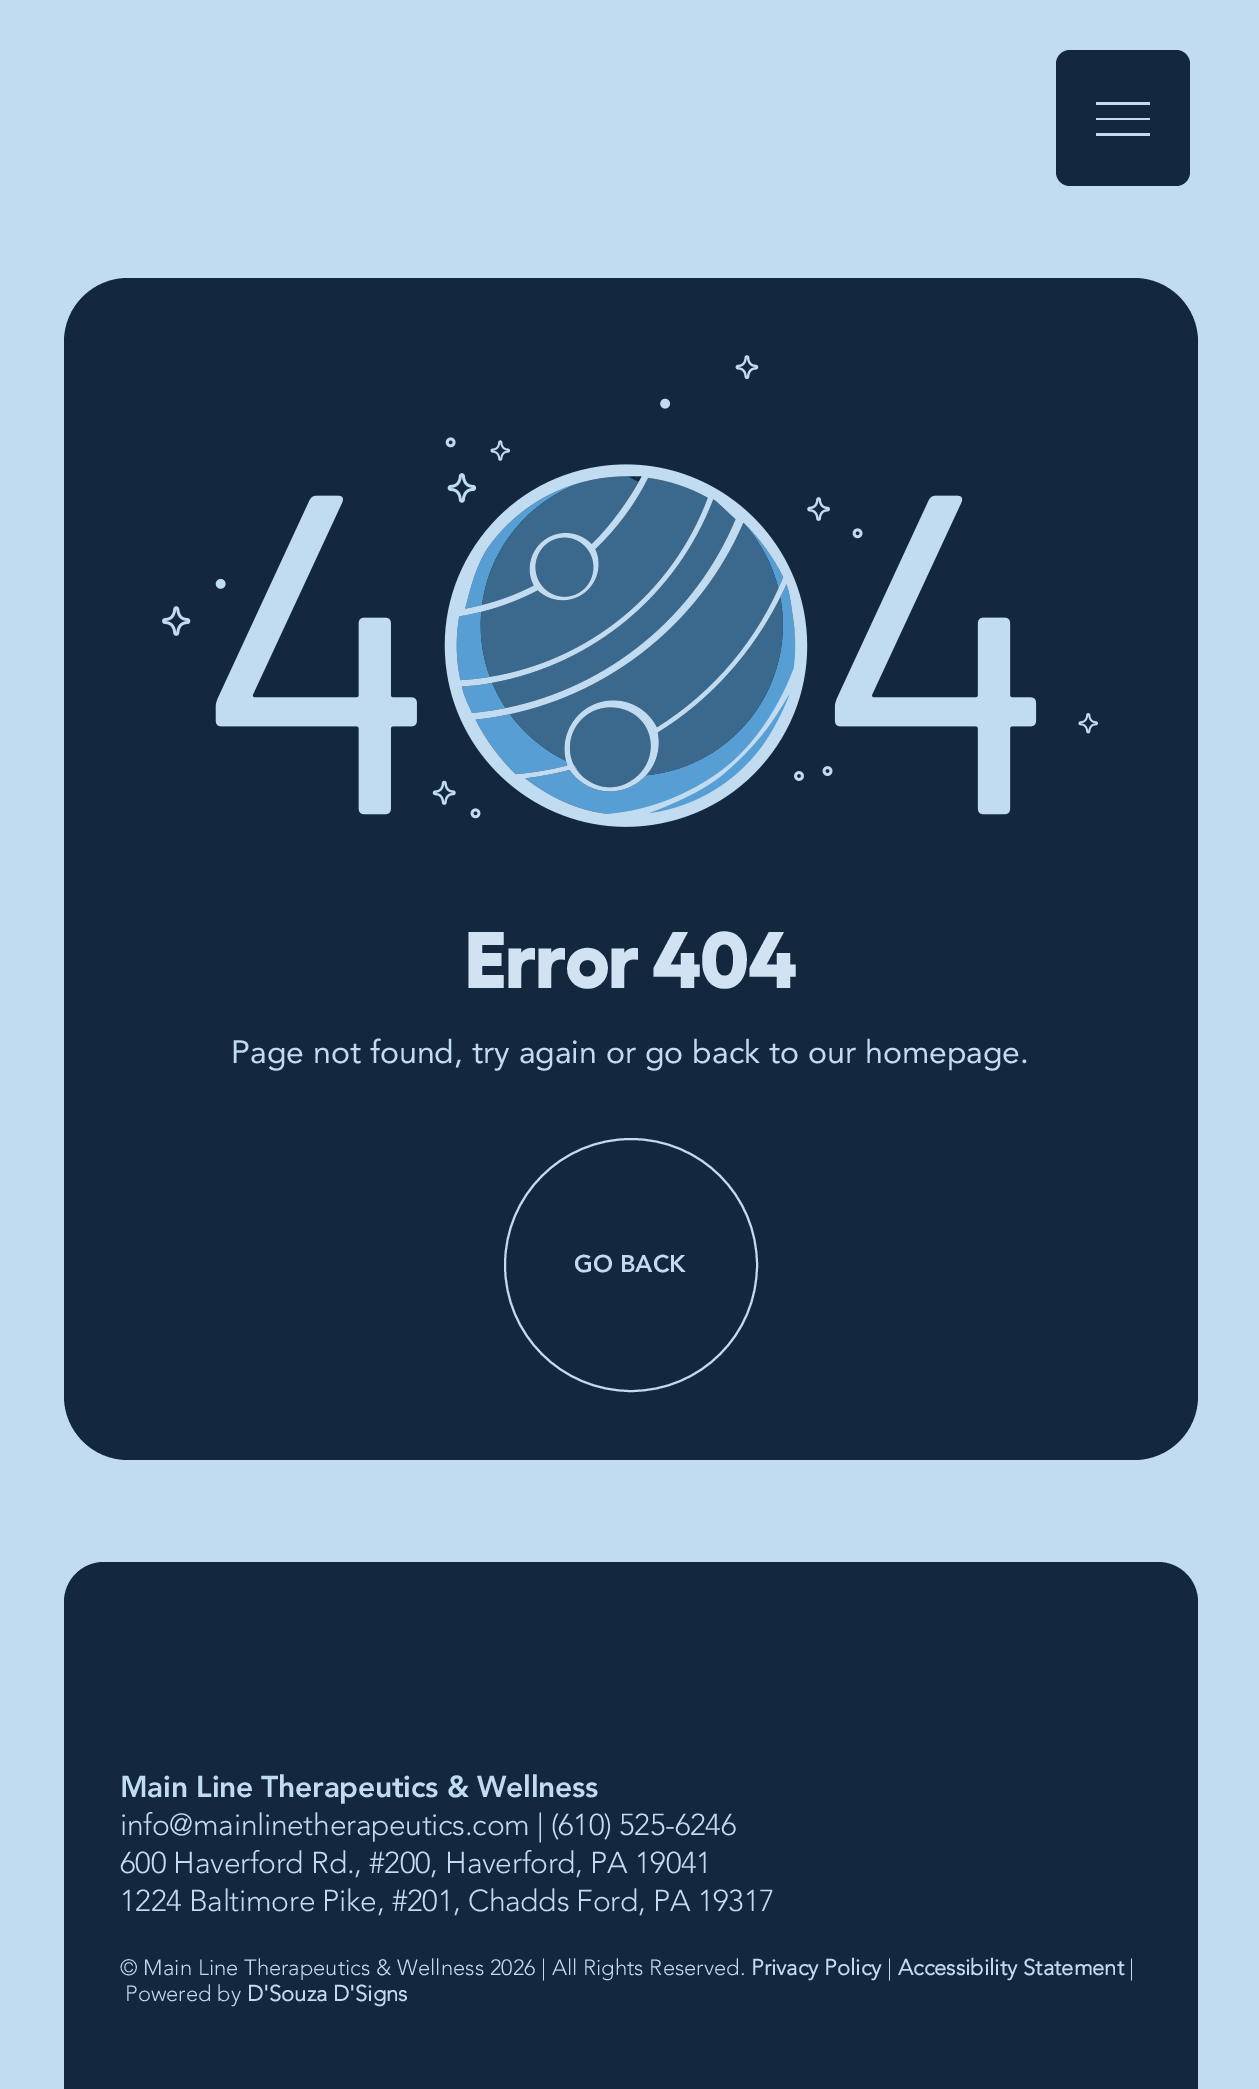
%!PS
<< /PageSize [1259 2089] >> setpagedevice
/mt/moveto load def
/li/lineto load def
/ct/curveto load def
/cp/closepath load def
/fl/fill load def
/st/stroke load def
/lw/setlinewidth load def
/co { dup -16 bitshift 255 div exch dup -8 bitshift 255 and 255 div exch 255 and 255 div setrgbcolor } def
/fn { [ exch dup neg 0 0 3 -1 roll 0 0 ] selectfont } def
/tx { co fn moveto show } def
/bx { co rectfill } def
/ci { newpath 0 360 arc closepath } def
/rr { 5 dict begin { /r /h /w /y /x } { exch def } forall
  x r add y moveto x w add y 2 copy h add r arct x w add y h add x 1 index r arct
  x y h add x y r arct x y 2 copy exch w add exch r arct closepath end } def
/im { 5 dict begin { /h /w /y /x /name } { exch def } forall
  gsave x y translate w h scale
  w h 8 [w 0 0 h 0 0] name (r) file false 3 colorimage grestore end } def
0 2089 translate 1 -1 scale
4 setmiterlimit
0 0 1259 2089 16#C1DCF1 bx
16#13273F co
1056 50 134 136 14 rr fl
1096 102 54 3 16#C1DCF1 bx
1096 118 54 2 16#C1DCF1 bx
1096 133 54 3 16#C1DCF1 bx
16#13273F co
64 278 1134 1182 64 rr fl
(media/1.raw) 162 355 936 472 im
16#C1DCF1 co
2 lw
631 1265 126 ci st
16#13273F co
104 1562 mt 1158 1562 li 1180 1562 1198 1580 1198 1602 ct 1198 1724 li 64 1724 li 64 1602 li 64 1580 82 1562 104 1562 ct cp fl
64 1724 1134 365 16#13273F bx
/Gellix-ExtraBold 80 fn
16#D1E3F3 co
465 988 mt -1.5 0 (Error 404) ashow
(Page not found, try again or go back to our homepage.) 231 1063 /Avenir-Regular 32 16#C1DCF1 tx
(GO BACK) 574 1272 /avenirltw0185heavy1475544-Black 24 16#C1DCF1 tx
/avenirltw0185heavy1475544-Black 30 fn
120 1797 mt -.3 0 (Main Line Therapeutics & Wellness) ashow
/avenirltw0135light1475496-Light 30 fn
120 1835 mt -.3 0 (info@mainlinetherapeutics.com | \(610\) 525-6246) ashow
120 1873 mt -.3 0 (600 Haverford Rd., #200, Haverford, PA 19041) ashow
120 1911 mt -.3 0 (1224 Baltimore Pike, #201, Chadds Ford, PA 19317) ashow
(© Main Line Therapeutics & Wellness 2026 | All Rights Reserved.) 120 1975 /avenirltw0135light1475496-Light 22 16#C1DCF1 tx
(Privacy Policy) 751 1975 /avenirltw0135light1475496-Bold 22 16#C1DCF1 tx
(|) 887 1975 /avenirltw0135light1475496-Light 22 16#C1DCF1 tx
(Accessibility Statement) 898 1975 /avenirltw0135light1475496-Bold 22 16#C1DCF1 tx
(|) 1129 1975 /avenirltw0135light1475496-Light 22 16#C1DCF1 tx
(Powered by) 125 2001 /avenirltw0135light1475496-Light 22 16#C1DCF1 tx
(D'Souza D'Signs) 247 2001 /avenirltw0135light1475496-Bold 22 16#C1DCF1 tx
showpage
